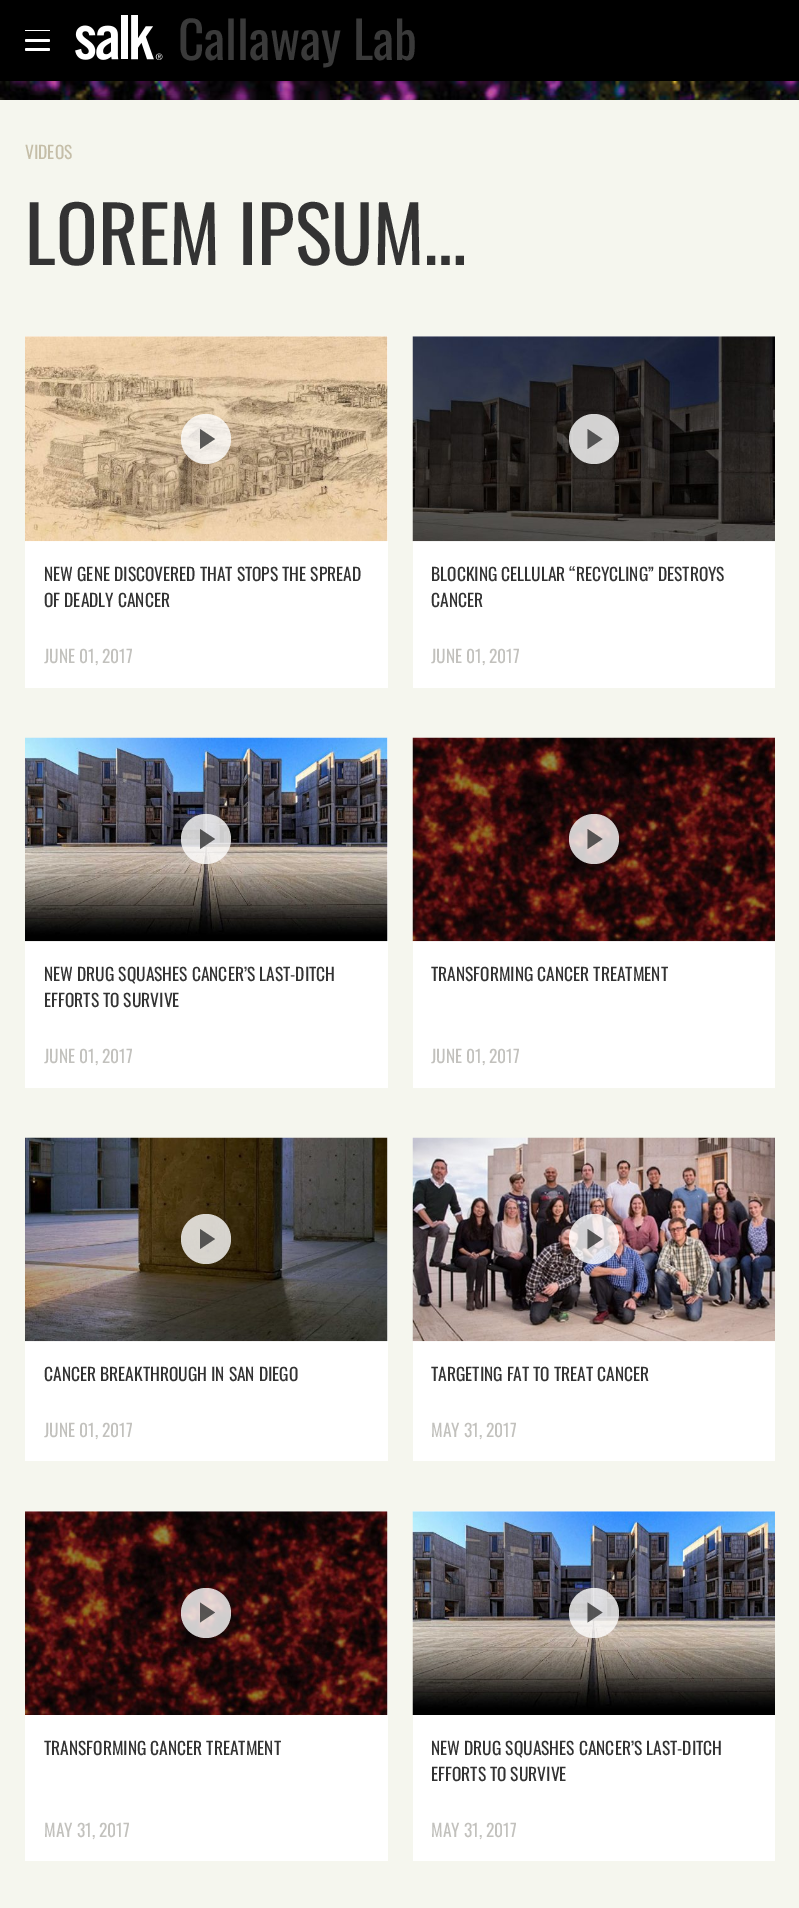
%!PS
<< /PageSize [799 1908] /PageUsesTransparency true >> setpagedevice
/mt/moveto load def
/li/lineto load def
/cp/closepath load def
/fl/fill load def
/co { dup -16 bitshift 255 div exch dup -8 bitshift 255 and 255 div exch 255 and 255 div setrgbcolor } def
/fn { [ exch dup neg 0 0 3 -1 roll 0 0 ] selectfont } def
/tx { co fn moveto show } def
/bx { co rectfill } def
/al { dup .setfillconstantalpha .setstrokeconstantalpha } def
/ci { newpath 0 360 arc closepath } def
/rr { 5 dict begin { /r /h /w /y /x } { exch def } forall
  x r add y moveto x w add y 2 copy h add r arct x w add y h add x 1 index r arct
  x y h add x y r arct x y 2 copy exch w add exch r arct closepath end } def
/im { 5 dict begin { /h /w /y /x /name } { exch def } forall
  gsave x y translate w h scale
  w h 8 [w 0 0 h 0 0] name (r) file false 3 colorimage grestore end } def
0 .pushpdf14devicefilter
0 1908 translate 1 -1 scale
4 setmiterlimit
0 0 799 1908 16#F5F6EE bx
0 0 799 81 16#000000 bx
16#FFFFFF co
25 30 25 1 .5 rr fl
25 39 25 3 1.5 rr fl
25 48 25 3 1.5 rr fl
(media/1.raw) 75 15 88 45 im
(media/2.raw) 0 81 799 19 im
25 336 363 352 16#FFFFFF bx
(media/3.raw) 25 336 363 206 im
0.8 al
206 439 25 ci fl
16#333333 co
200 449 mt 200 429 li 215 439 li cp fl
1 al
413 336 362 352 16#FFFFFF bx
(media/4.raw) 412 336 363 206 im
0.8 al
594 439 25 ci fl
1 al
16#535353 co
587.5 449 mt 587.5 429 li 602.5 439 li cp fl
25 738 363 350 16#FFFFFF bx
(media/5.raw) 25 737 363 205 im
0.8 al
206 839 25 ci fl
16#333333 co
200 849 mt 200 829 li 215 839 li cp fl
1 al
413 941 362 147 16#FFFFFF bx
(media/6.raw) 412 737 363 205 im
0.8 al
594 839 25 ci fl
16#333333 co
587.5 849 mt 587.5 829 li 602.5 839 li cp fl
1 al
25 1138 363 323 16#FFFFFF bx
(media/7.raw) 25 1137 363 205 im
0.8 al
206 1239 25 ci fl
16#333333 co
200 1249 mt 200 1229 li 215 1239 li cp fl
1 al
413 1341 362 120 16#FFFFFF bx
(media/8.raw) 412 1137 363 205 im
0.8 al
594 1239 25 ci fl
16#333333 co
587.5 1249 mt 587.5 1229 li 602.5 1239 li cp fl
1 al
25 1511 363 350 16#FFFFFF bx
(media/9.raw) 25 1511 363 204 im
0.8 al
206 1613 25 ci fl
16#333333 co
200 1622.5 mt 200 1602.5 li 215 1612.5 li cp fl
1 al
413 1511 362 350 16#FFFFFF bx
(media/10.raw) 412 1511 363 204 im
0.8 al
594 1613 25 ci fl
16#333333 co
587.5 1622.5 mt 587.5 1602.5 li 602.5 1612.5 li cp fl
1 al
(Callaway Lab) 178 60 /Oswald-Regular 51.25 16#3A3A3A tx
(VIDEOS) 25 159 /Oswald-Regular 17.5 16#C5BEA8 tx
(LOREM IPSUM…) 25 265 /Oswald-Regular 77.5 16#333333 tx
(NEW GENE DISCOVERED THAT STOPS THE SPREAD) 44 581 /Oswald-Regular 17.5 16#333333 tx
(OF DEADLY CANCER) 44 607 /Oswald-Regular 17.5 16#333333 tx
(JUNE 01, 2017) 44 663 /Oswald-Regular 17.5 16#C2C1BD tx
(BLOCKING CELLULAR “RECYCLING” DESTROYS) 431 581 /Oswald-Regular 17.5 16#333333 tx
(CANCER) 431 607 /Oswald-Regular 17.5 16#333333 tx
(JUNE 01, 2017) 431 663 /Oswald-Regular 17.5 16#C2C1BD tx
(NEW DRUG SQUASHES CANCER’S LAST-DITCH) 44 981 /Oswald-Regular 17.5 16#333333 tx
(EFFORTS TO SURVIVE) 44 1007 /Oswald-Regular 17.5 16#333333 tx
(JUNE 01, 2017) 44 1063 /Oswald-Regular 17.5 16#C2C1BD tx
(TRANSFORMING CANCER TREATMENT) 431 981 /Oswald-Regular 17.5 16#333333 tx
(JUNE 01, 2017) 431 1063 /Oswald-Regular 17.5 16#C2C1BD tx
(CANCER BREAKTHROUGH IN SAN DIEGO) 44 1381 /Oswald-Regular 17.5 16#333333 tx
(JUNE 01, 2017) 44 1437 /Oswald-Regular 17.5 16#C2C1BD tx
(TARGETING FAT TO TREAT CANCER) 431 1381 /Oswald-Regular 17.5 16#333333 tx
(MAY 31, 2017) 431 1437 /Oswald-Regular 17.5 16#C2C1BD tx
(TRANSFORMING CANCER TREATMENT) 44 1755 /Oswald-Regular 17.5 16#333333 tx
(MAY 31, 2017) 44 1837 /Oswald-Regular 17.5 16#C2C1BD tx
(NEW DRUG SQUASHES CANCER’S LAST-DITCH) 431 1755 /Oswald-Regular 17.5 16#333333 tx
(EFFORTS TO SURVIVE) 431 1781 /Oswald-Regular 17.5 16#333333 tx
(MAY 31, 2017) 431 1837 /Oswald-Regular 17.5 16#C2C1BD tx
.poppdf14devicefilter showpage
